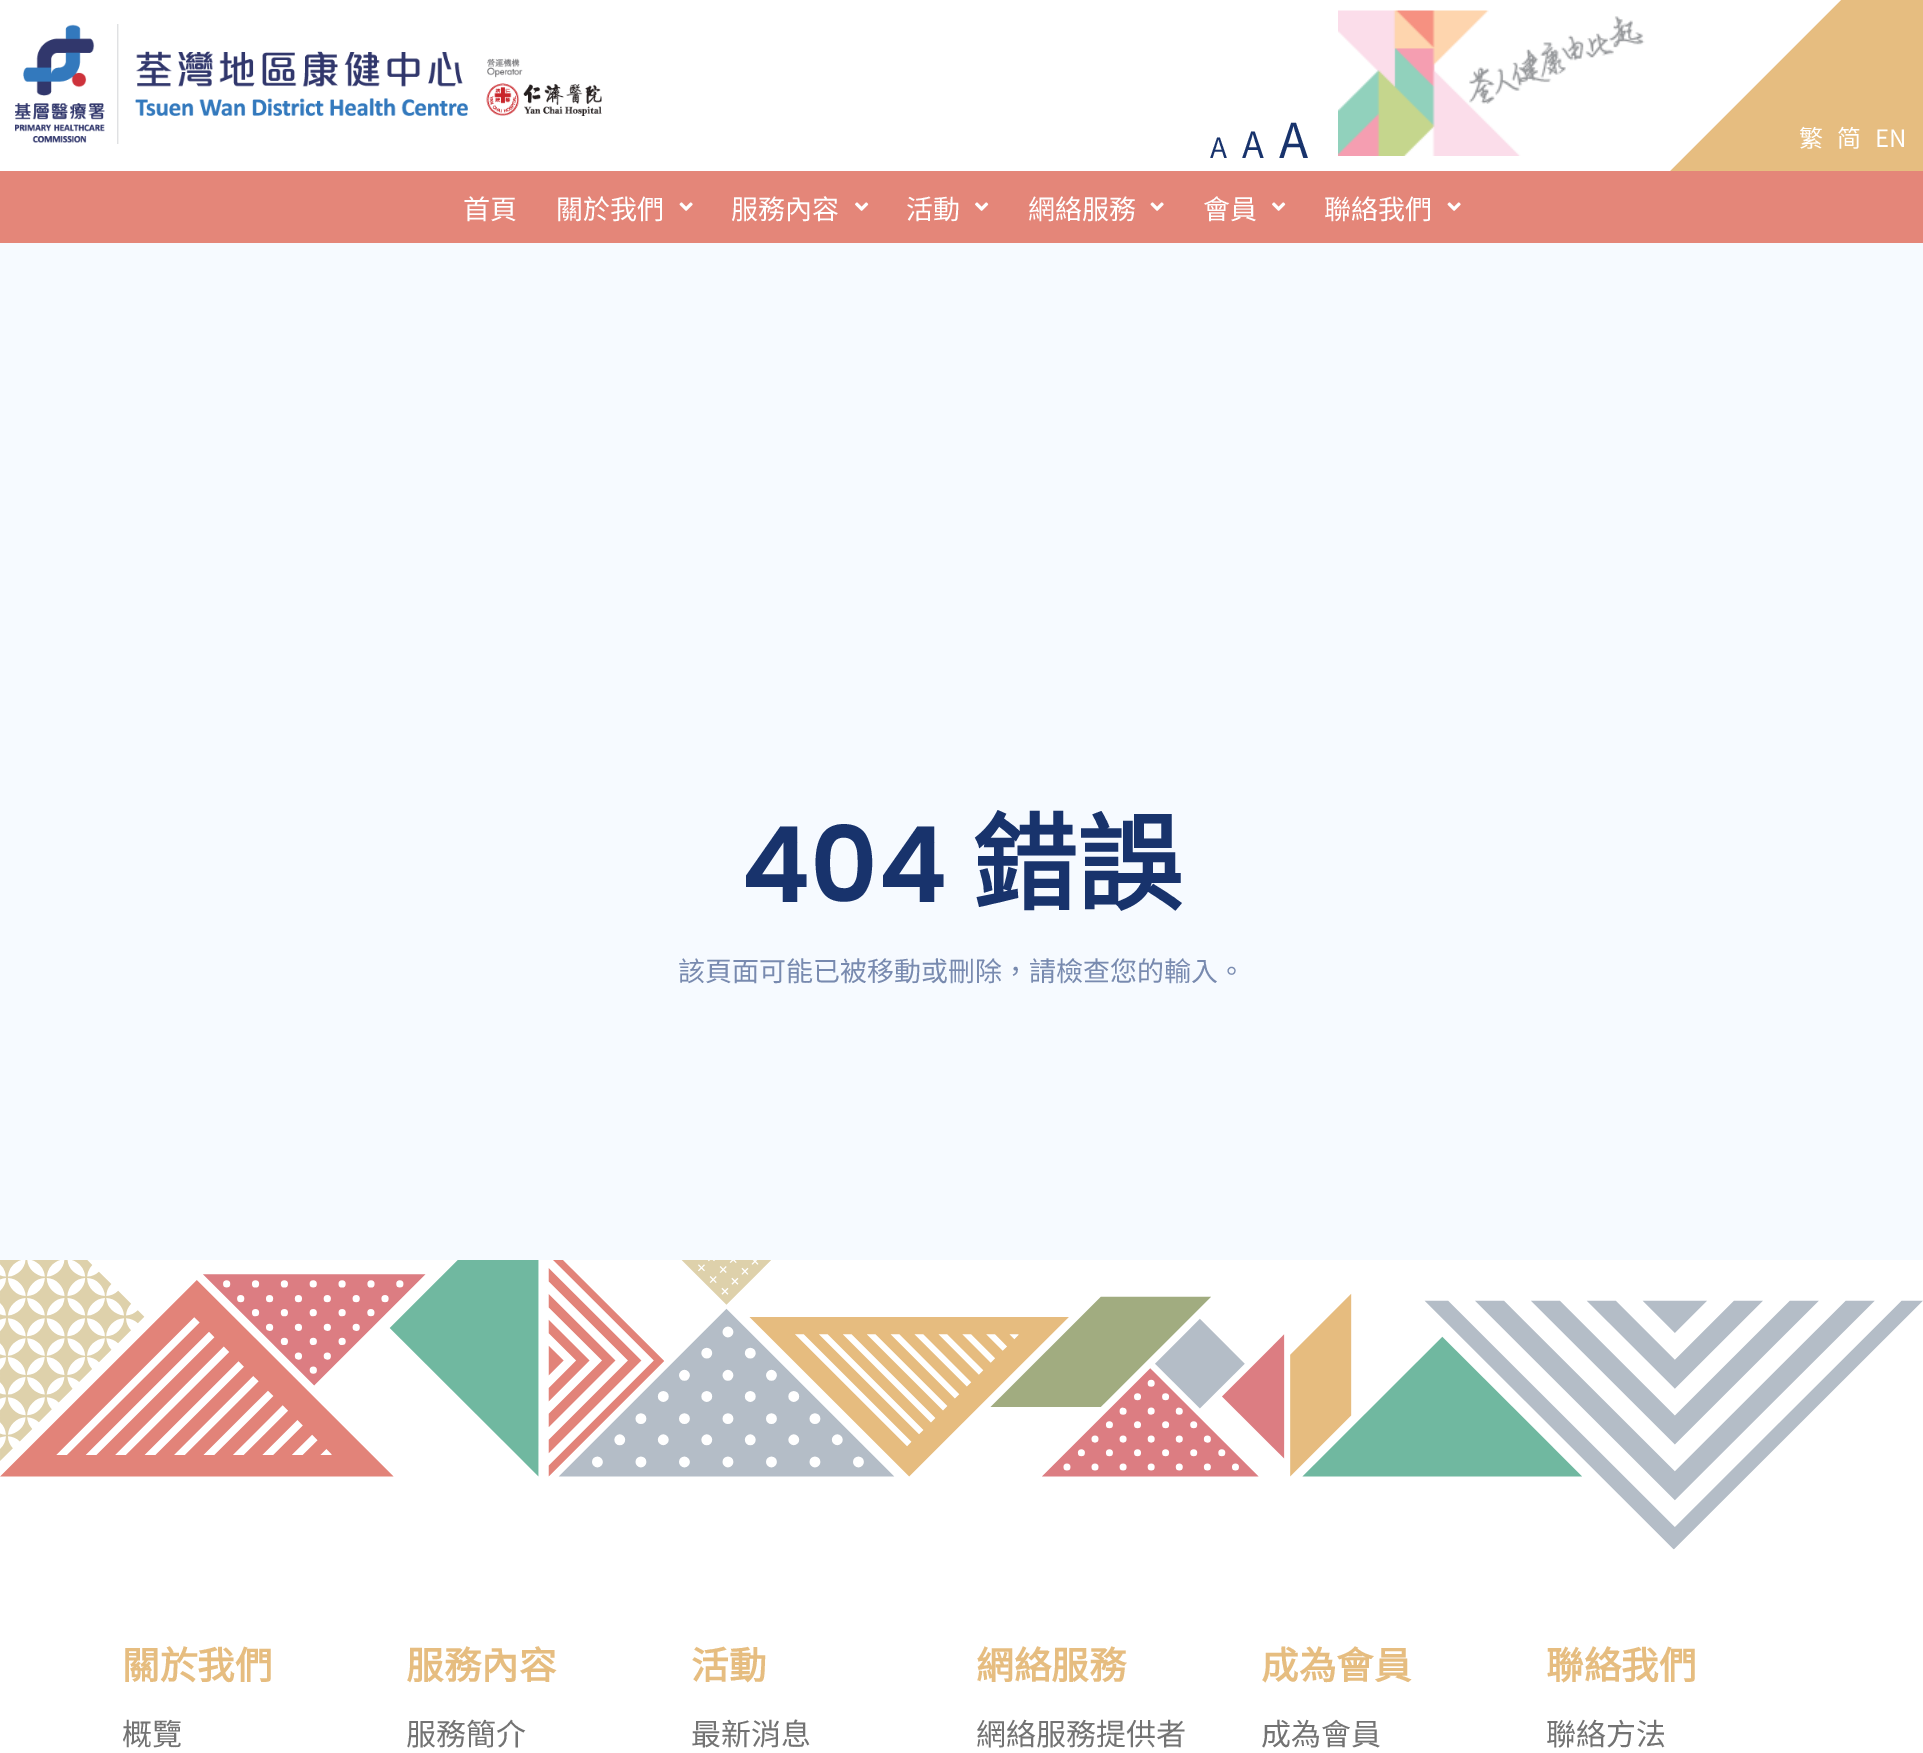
%!PS
<< /PageSize [1923 1753] >> setpagedevice
/mt/moveto load def
/li/lineto load def
/cp/closepath load def
/fl/fill load def
/co { dup -16 bitshift 255 div exch dup -8 bitshift 255 and 255 div exch 255 and 255 div setrgbcolor } def
/fn { [ exch dup neg 0 0 3 -1 roll 0 0 ] selectfont } def
/tx { co fn moveto show } def
/bx { co rectfill } def
/im { 5 dict begin { /h /w /y /x /name } { exch def } forall
  gsave x y translate w h scale
  w h 8 [w 0 0 h 0 0] name (r) file false 3 colorimage grestore end } def
0 1753 translate 1 -1 scale
4 setmiterlimit
0 0 1923 1753 16#FFFFFF bx
0 243 1923 1017 16#F6FAFF bx
(media/1.raw) 15 24 587 120 im
(media/2.raw) 1338 10 307 146 im
1670 0 253 171 16#E6BD80 bx
16#FFFFFF co
1845 -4 mt 1670 -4 li 1670 171 li cp fl
0 171 1923 72 16#E48679 bx
(media/3.raw) 679 202 14 9 im
(media/4.raw) 855 202 14 9 im
(media/4.raw) 975 202 14 9 im
(media/3.raw) 1150 202 14 9 im
(media/4.raw) 1272 202 14 9 im
(media/3.raw) 1447 202 14 9 im
(media/5.raw) 0 1260 1923 290 im
(A) 1210 158 /NotoSansTC-Regular 28 16#18336C tx
(A) 1242 158 /NotoSansTC-Regular 36 16#18336C tx
(A) 1279 158 /NotoSansTC-Regular 48 16#18336C tx
(繁) 1799 147 /NotoSansSC-Regular 24 16#FFFFFF tx
(简) 1837 147 /NotoSansSC-Regular 24 16#FFFFFF tx
(EN) 1875 147 /NotoSansSC-Regular 24 16#FFFFFF tx
(首頁) 463 219 /NotoSansTC-Regular 27 16#FFFFFF tx
(關於我們) 556 219 /NotoSansTC-Regular 27 16#FFFFFF tx
(服務內容) 731 219 /NotoSansTC-Regular 27 16#FFFFFF tx
(活動) 906 219 /NotoSansTC-Regular 27 16#FFFFFF tx
(網絡服務) 1028 219 /NotoSansTC-Regular 27 16#FFFFFF tx
(會員) 1203 219 /NotoSansTC-Regular 27 16#FFFFFF tx
(聯絡我們) 1324 219 /NotoSansTC-Regular 27 16#FFFFFF tx
(404) 741 902 /Poppins-SemiBold 105 16#18336C tx
(錯誤) 972 902 /NotoSansCJKHK-Bold 105 16#18336C tx
(該頁面可能已被移動或刪除，請檢查您的輸入。) 678 981 /NotoSansCJKHK-Regular 27 16#788AAF tx
(關於我們) 122 1679 /NotoSansCJKHK-Bold 37.5 16#E6BD80 tx
(概覽) 122 1745 /NotoSansTC-Regular 30 16#737373 tx
(服務內容) 406 1679 /NotoSansCJKHK-Bold 37.5 16#E6BD80 tx
(服務簡介) 406 1745 /NotoSansTC-Regular 30 16#737373 tx
(活動) 691 1679 /NotoSansCJKHK-Bold 37.5 16#E6BD80 tx
(最新消息) 691 1745 /NotoSansTC-Regular 30 16#737373 tx
(網絡服務) 976 1679 /NotoSansCJKHK-Bold 37.5 16#E6BD80 tx
(網絡服務提供者) 976 1745 /NotoSansTC-Regular 30 16#737373 tx
(成為會員) 1261 1679 /NotoSansCJKHK-Bold 37.5 16#E6BD80 tx
(成為會員) 1261 1745 /NotoSansTC-Regular 30 16#737373 tx
(聯絡我們) 1546 1679 /NotoSansCJKHK-Bold 37.5 16#E6BD80 tx
(聯絡方法) 1546 1745 /NotoSansTC-Regular 30 16#737373 tx
showpage
